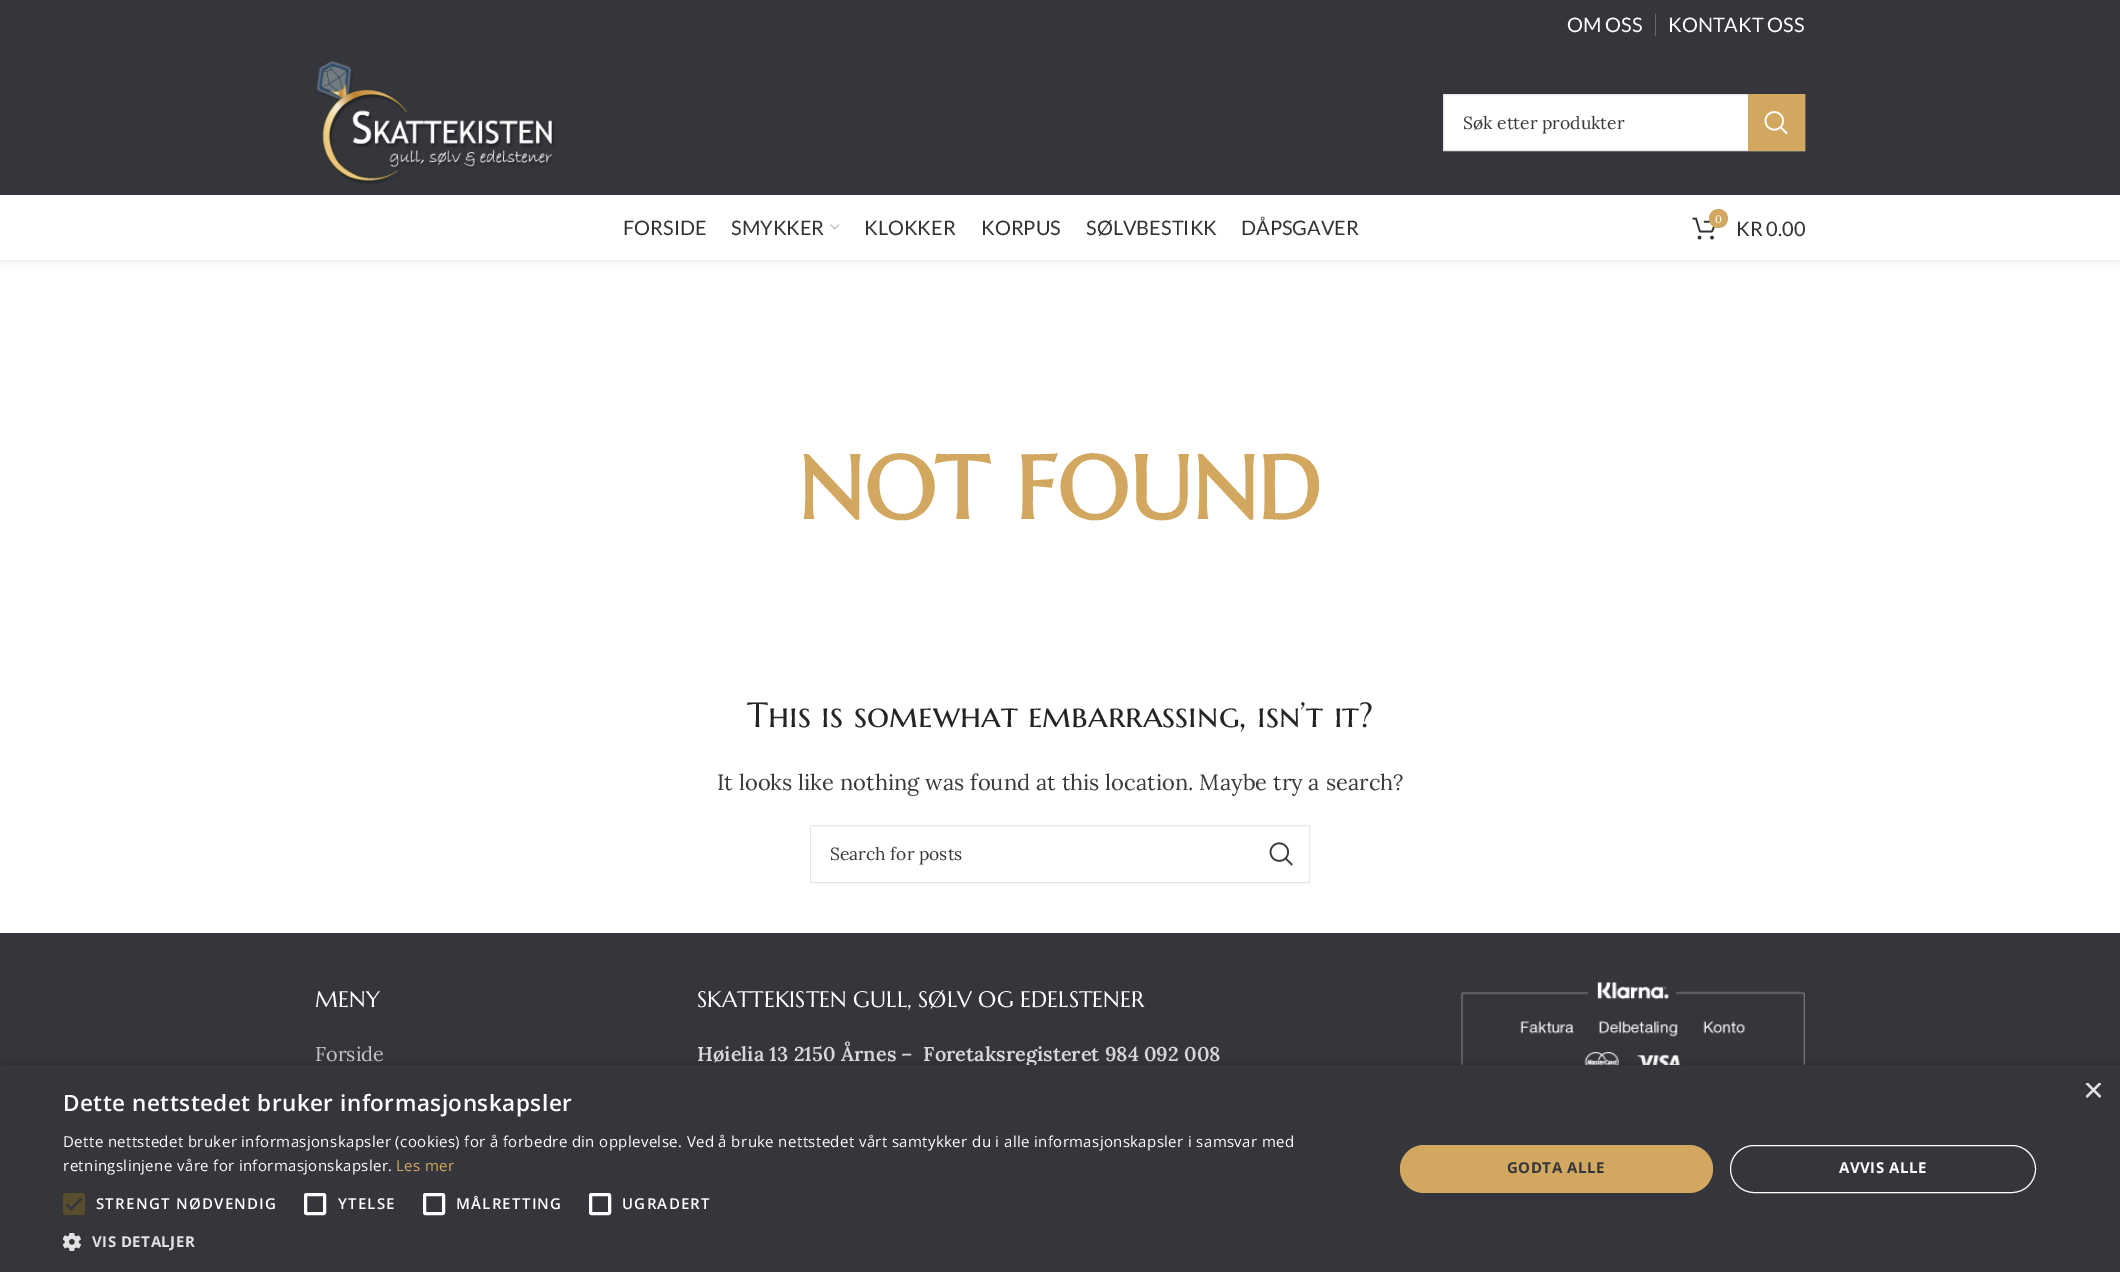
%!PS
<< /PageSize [2120 1272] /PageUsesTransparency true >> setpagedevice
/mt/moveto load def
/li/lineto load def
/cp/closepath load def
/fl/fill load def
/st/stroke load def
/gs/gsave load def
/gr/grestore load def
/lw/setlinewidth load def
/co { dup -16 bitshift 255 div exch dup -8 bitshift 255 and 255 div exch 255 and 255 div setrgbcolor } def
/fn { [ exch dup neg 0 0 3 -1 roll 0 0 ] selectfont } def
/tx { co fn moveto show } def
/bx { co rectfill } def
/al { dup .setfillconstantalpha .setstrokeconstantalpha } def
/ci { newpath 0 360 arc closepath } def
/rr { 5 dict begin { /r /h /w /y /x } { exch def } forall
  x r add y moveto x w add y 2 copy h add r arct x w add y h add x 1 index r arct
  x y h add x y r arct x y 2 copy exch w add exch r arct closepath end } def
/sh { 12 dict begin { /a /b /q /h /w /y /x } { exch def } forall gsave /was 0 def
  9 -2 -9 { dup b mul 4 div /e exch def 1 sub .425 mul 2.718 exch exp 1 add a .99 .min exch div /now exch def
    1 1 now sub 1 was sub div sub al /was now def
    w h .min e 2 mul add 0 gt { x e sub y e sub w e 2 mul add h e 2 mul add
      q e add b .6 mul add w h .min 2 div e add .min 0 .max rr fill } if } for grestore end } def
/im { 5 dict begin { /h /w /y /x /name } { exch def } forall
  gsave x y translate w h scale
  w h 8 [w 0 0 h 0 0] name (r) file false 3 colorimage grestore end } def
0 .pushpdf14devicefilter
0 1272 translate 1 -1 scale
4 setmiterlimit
0 0 2120 1272 16#FFFFFF bx
0 0 2120 195 16#34363C bx
1655 14 1 22 16#67686D bx
gs
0 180 mt 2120 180 li 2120 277 li 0 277 li cp 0 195 mt 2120 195 li 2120 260 li 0 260 li cp eoclip newpath
16#000000 co
0 196 2120 65 0 5 .1 sh
gr
(media/1.raw) 316 61 239 123 im
1444 95 304 55 16#FFFFFF bx
16#E6E6E6 co
1443.5 94.5 361 56 rectstroke
1748 94 57 57 16#D2A861 bx
(media/2.raw) 1764 111 24 24 im
(media/3.raw) 830 224 10 6 im
(media/4.raw) 1692 217 23 23 im
1718.5 218.5 9.5 ci fl
16#E6E6E6 co
810.5 825.5 499 57 rectstroke
(media/5.raw) 1269 842 24 24 im
0 933 2120 132 16#34363C bx
(media/6.raw) 1461 982 344 83 im
16#000000 co
1 1068 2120 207 0 5 .35 sh
(OM OSS) 1567 32 /Lato-Regular 20 16#FFFFFF tx
(KONTAKT OSS) 1668 32 /Lato-Regular 20 16#FFFFFF tx
(Søk etter produkter) 1463 129 /Lora-Regular 17.5 16#3A3A3A tx
(FORSIDE) 623 235 /Lato-Regular 20 16#333333 tx
(SMYKKER) 731 235 /Lato-Regular 20 16#333333 tx
(KLOKKER) 864 235 /Lato-Regular 20 16#333333 tx
(KORPUS) 981 235 /Lato-Regular 20 16#333333 tx
(SØLVBESTIKK) 1086 235 /Lato-Regular 20 16#333333 tx
(DÅPSGAVER) 1241 235 /Lato-Regular 20 16#333333 tx
(0) 1715 223 /Lora-Regular 11 16#FFFFFF tx
(KR 0.00) 1736 236 /Lato-Regular 20 16#333333 tx
(NOT FOUND) 798 519 /MarcellusSC-Bold 89 16#D2A861 tx
(This is somewhat embarrassing, isn’t it?) 747 727 /MarcellusSC-Regular 35 16#242424 tx
(It looks like nothing was found at this location. Maybe try a search?) 717 790 /Lora-Regular 22 16#3A3A3A tx
(Search for posts) 830 860 /Lora-Regular 17.5 16#3A3A3A tx
(MENY) 315 1007 /MarcellusSC-Regular 22.5 16#FFFFFF tx
(Forside) 315 1061 /Lora-Regular 20 16#C2C3C5 tx
(SKATTEKISTEN GULL, SØLV OG EDELSTENER) 697 1007 /MarcellusSC-Regular 22.5 16#FFFFFF tx
(Høielia 13 2150 Årnes –  Foretaksregisteret 984 092 008) 697 1061 /Lora-SemiBold 20 16#D6D7D8 tx
0 1065 2120 207 16#34363C bx
gs
2083 1083 18 18 rectclip
(×) 2083 1102 /LiberationSans-Regular 36 16#E1E1E2 tx
gr
/OpenSans-SemiBold 22.5 fn
16#FFFFFF co
63 1111 mt .5 0 (Dette nettstedet bruker informasjonskapsler) ashow
/OpenSans-Regular 15 fn
63 1147 mt .38 0 (Dette nettstedet bruker informasjonskapsler \(cookies\) for å forbedre din opplevelse. Ved å bruke nettstedet vårt samtykker du i alle informasjonskapsler i samsvar med) ashow
63 1171 mt .38 0 (retningslinjene våre for informasjonskapsler.) ashow
16#D2A861 co
396 1171 mt .38 0 (Les mer) ashow
16#584D2C co
63 1193 22 22 2.5 rr fl
16#34363C co
2.3 lw
66.5 1204.5 mt 71 1209 li 81.5 1198.5 li st
/OpenSans-SemiBold 15 fn
16#FFFFFF co
96 1209 mt 1.25 0 (STRENGT NØDVENDIG) ashow
3 lw
305.5 1194.5 19 19 1 rr st
338 1209 mt 1.25 0 (YTELSE) ashow
424.5 1194.5 19 19 1 rr st
456 1209 mt 1.25 0 (MÅLRETTING) ashow
590.5 1194.5 19 19 1 rr st
622 1209 mt 1.25 0 (UGRADERT) ashow
(media/7.raw) 63 1233 18 18 im
/OpenSans-Bold 15 fn
16#E1E1E2 co
92 1247 mt .5 0 (VIS DETALJER) ashow
16#D2A861 co
1400 1145 313 48 24 rr fl
16#34363C co
1507 1173 mt .5 0 (GODTA ALLE) ashow
16#FFFFFF co
1 lw
1730.5 1145.5 305 47 23.5 rr st
1839 1173 mt .5 0 (AVVIS ALLE) ashow
.poppdf14devicefilter showpage
